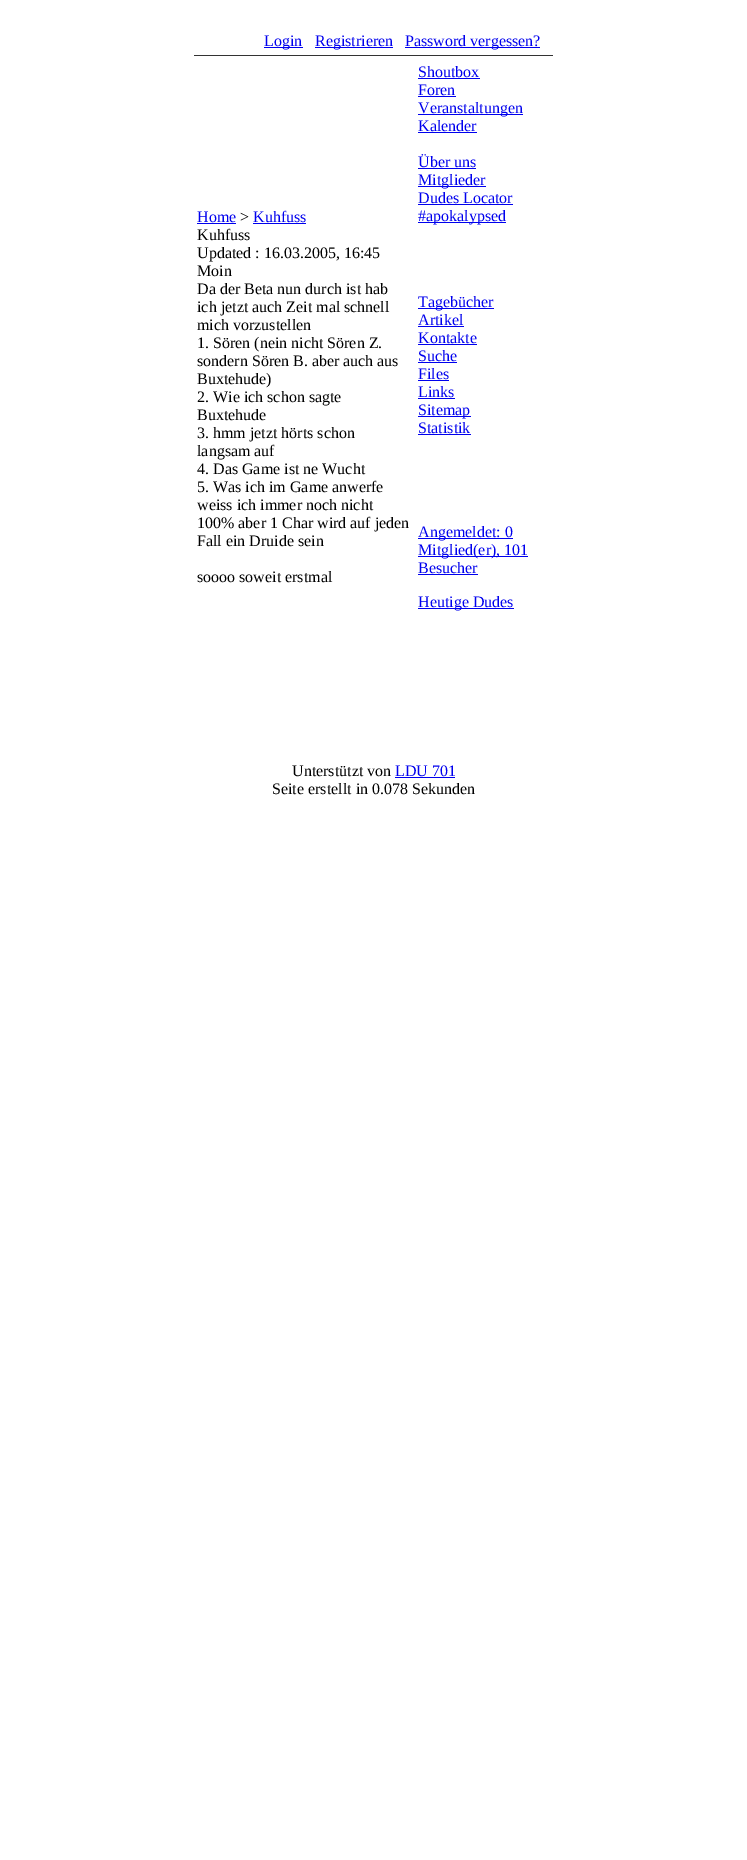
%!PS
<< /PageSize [747 1860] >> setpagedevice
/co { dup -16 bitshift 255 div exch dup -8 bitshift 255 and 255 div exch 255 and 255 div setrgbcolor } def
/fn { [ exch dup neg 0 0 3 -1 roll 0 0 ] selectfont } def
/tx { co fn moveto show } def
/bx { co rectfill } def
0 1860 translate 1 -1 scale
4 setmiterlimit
0 0 747 1860 16#FFFFFF bx
194 55 359 1 16#333333 bx
264 47 39 1 16#0000EE bx
315 47 78 1 16#0000EE bx
405 47 135 1 16#0000EE bx
197 223 39 1 16#0000EE bx
253 223 53 1 16#0000EE bx
418 78 62 1 16#0000EE bx
418 96 38 1 16#0000EE bx
418 114 105 1 16#0000EE bx
418 132 59 1 16#0000EE bx
418 168 58 1 16#0000EE bx
418 186 68 1 16#0000EE bx
418 204 95 1 16#0000EE bx
418 222 88 1 16#0000EE bx
418 308 76 1 16#0000EE bx
418 326 46 1 16#0000EE bx
418 344 59 1 16#0000EE bx
418 362 39 1 16#0000EE bx
418 380 31 1 16#0000EE bx
418 398 37 1 16#0000EE bx
418 416 53 1 16#0000EE bx
418 434 53 1 16#0000EE bx
418 538 95 1 16#0000EE bx
418 556 110 1 16#0000EE bx
418 574 60 1 16#0000EE bx
418 608 96 1 16#0000EE bx
395 777 60 1 16#0000EE bx
(Login) 264 46 /LiberationSerif-Regular 16 16#0000EE tx
(Registrieren) 315 46 /LiberationSerif-Regular 16 16#0000EE tx
(Password vergessen?) 405 46 /LiberationSerif-Regular 16 16#0000EE tx
(Home) 197 222 /LiberationSerif-Regular 16 16#0000EE tx
(>) 240 222 /LiberationSerif-Regular 16 16#000000 tx
(Kuhfuss) 253 222 /LiberationSerif-Regular 16 16#0000EE tx
(Kuhfuss) 197 240 /LiberationSerif-Regular 16 16#000000 tx
(Updated : 16.03.2005, 16:45) 197 258 /LiberationSerif-Regular 16 16#000000 tx
(Moin) 197 276 /LiberationSerif-Regular 16 16#000000 tx
(Da der Beta nun durch ist hab) 197 294 /LiberationSerif-Regular 16 16#000000 tx
(ich jetzt auch Zeit mal schnell) 197 312 /LiberationSerif-Regular 16 16#000000 tx
(mich vorzustellen) 197 330 /LiberationSerif-Regular 16 16#000000 tx
(1. Sören \(nein nicht Sören Z.) 197 348 /LiberationSerif-Regular 16 16#000000 tx
(sondern Sören B. aber auch aus) 197 366 /LiberationSerif-Regular 16 16#000000 tx
(Buxtehude\)) 197 384 /LiberationSerif-Regular 16 16#000000 tx
(2. Wie ich schon sagte) 197 402 /LiberationSerif-Regular 16 16#000000 tx
(Buxtehude) 197 420 /LiberationSerif-Regular 16 16#000000 tx
(3. hmm jetzt hörts schon) 197 438 /LiberationSerif-Regular 16 16#000000 tx
(langsam auf) 197 456 /LiberationSerif-Regular 16 16#000000 tx
(4. Das Game ist ne Wucht) 197 474 /LiberationSerif-Regular 16 16#000000 tx
(5. Was ich im Game anwerfe) 197 492 /LiberationSerif-Regular 16 16#000000 tx
(weiss ich immer noch nicht) 197 510 /LiberationSerif-Regular 16 16#000000 tx
(100% aber 1 Char wird auf jeden) 197 528 /LiberationSerif-Regular 16 16#000000 tx
(Fall ein Druide sein) 197 546 /LiberationSerif-Regular 16 16#000000 tx
(soooo soweit erstmal) 197 582 /LiberationSerif-Regular 16 16#000000 tx
(Shoutbox) 418 77 /LiberationSerif-Regular 16 16#0000EE tx
(Foren) 418 95 /LiberationSerif-Regular 16 16#0000EE tx
(Veranstaltungen) 418 113 /LiberationSerif-Regular 16 16#0000EE tx
(Kalender) 418 131 /LiberationSerif-Regular 16 16#0000EE tx
(Über uns) 418 167 /LiberationSerif-Regular 16 16#0000EE tx
(Mitglieder) 418 185 /LiberationSerif-Regular 16 16#0000EE tx
(Dudes Locator) 418 203 /LiberationSerif-Regular 16 16#0000EE tx
(#apokalypsed) 418 221 /LiberationSerif-Regular 16 16#0000EE tx
(Tagebücher) 418 307 /LiberationSerif-Regular 16 16#0000EE tx
(Artikel) 418 325 /LiberationSerif-Regular 16 16#0000EE tx
(Kontakte) 418 343 /LiberationSerif-Regular 16 16#0000EE tx
(Suche) 418 361 /LiberationSerif-Regular 16 16#0000EE tx
(Files) 418 379 /LiberationSerif-Regular 16 16#0000EE tx
(Links) 418 397 /LiberationSerif-Regular 16 16#0000EE tx
(Sitemap) 418 415 /LiberationSerif-Regular 16 16#0000EE tx
(Statistik) 418 433 /LiberationSerif-Regular 16 16#0000EE tx
(Angemeldet: 0) 418 537 /LiberationSerif-Regular 16 16#0000EE tx
(Mitglied\(er\), 101) 418 555 /LiberationSerif-Regular 16 16#0000EE tx
(Besucher) 418 573 /LiberationSerif-Regular 16 16#0000EE tx
(Heutige Dudes) 418 607 /LiberationSerif-Regular 16 16#0000EE tx
(Unterstützt von) 292 776 /LiberationSerif-Regular 16 16#000000 tx
(LDU 701) 395 776 /LiberationSerif-Regular 16 16#0000EE tx
(Seite erstellt in 0.078 Sekunden) 272 794 /LiberationSerif-Regular 16 16#000000 tx
showpage
